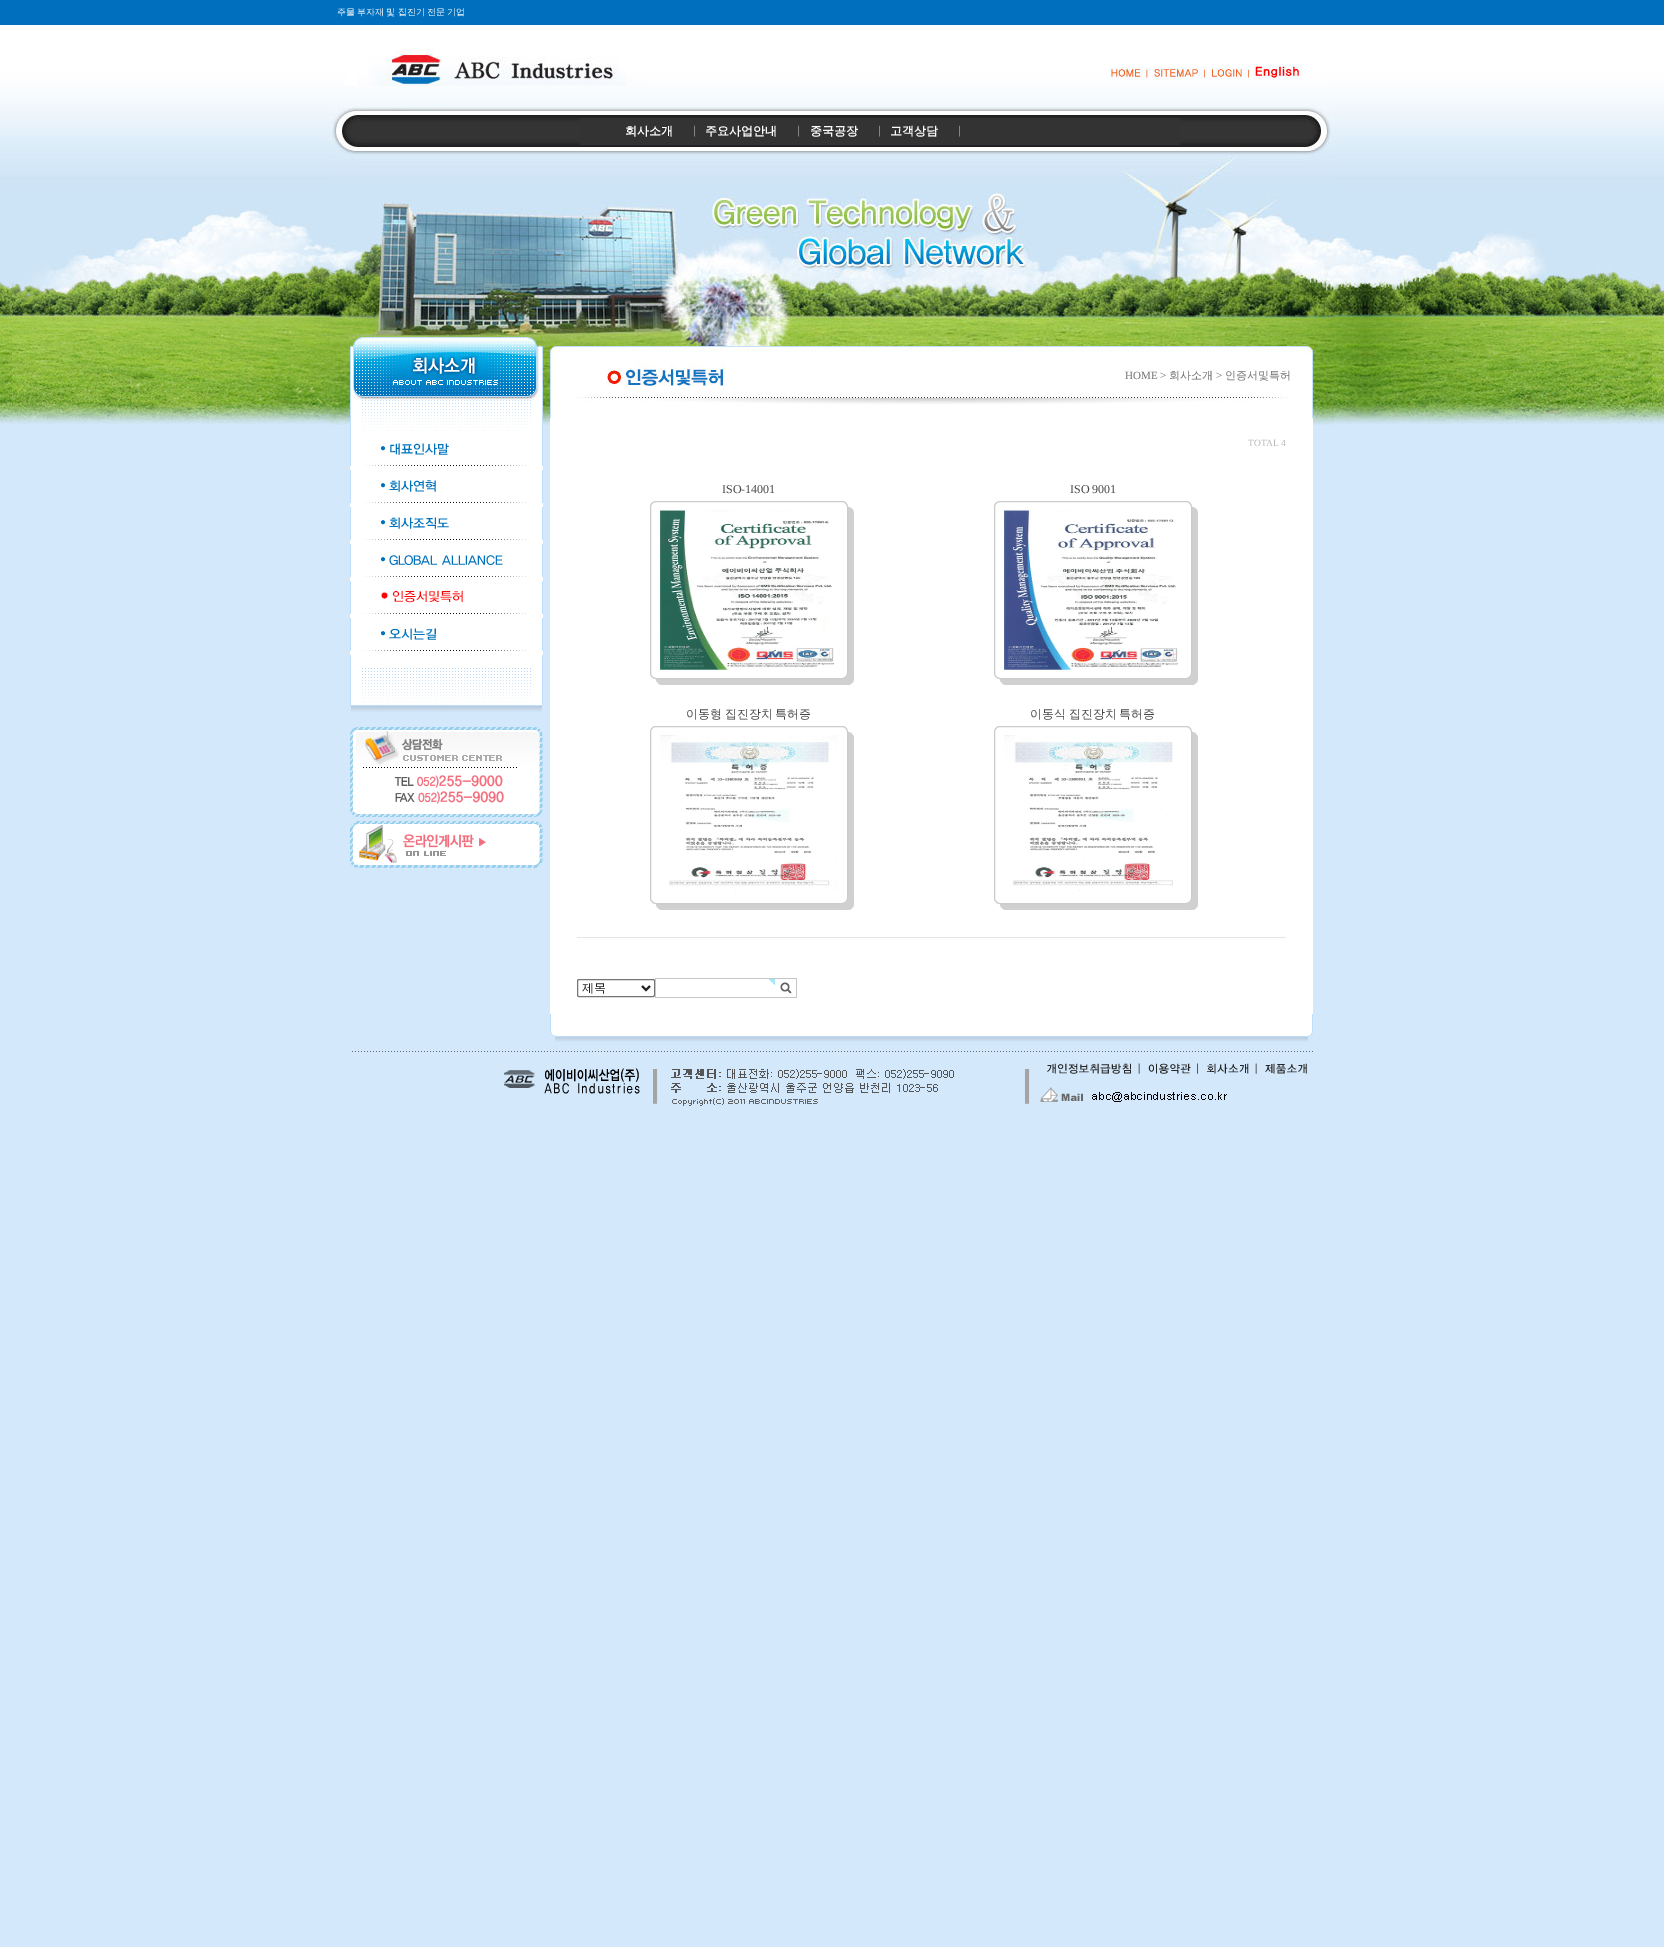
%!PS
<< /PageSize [1664 1947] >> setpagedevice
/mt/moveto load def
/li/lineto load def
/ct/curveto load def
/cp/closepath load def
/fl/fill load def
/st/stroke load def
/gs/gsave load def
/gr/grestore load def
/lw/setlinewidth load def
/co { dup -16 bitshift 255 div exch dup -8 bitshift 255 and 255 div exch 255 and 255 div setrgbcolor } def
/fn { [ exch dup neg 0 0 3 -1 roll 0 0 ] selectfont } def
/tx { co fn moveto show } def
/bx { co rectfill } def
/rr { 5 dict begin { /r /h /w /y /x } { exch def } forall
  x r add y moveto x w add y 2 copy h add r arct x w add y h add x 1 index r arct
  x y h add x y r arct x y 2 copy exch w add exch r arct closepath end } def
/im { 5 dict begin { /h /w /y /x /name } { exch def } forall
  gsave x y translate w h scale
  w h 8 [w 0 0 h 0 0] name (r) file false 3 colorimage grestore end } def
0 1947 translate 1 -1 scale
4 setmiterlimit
0 0 1664 1947 16#D3E8FB bx
(media/1.raw) 0 25 1664 399 im
0 0 1664 25 16#006FBE bx
(media/2.raw) 330 47 1004 464 im
(media/3.raw) 1110 67 40 12 im
(media/4.raw) 1153 67 54 12 im
(media/5.raw) 1210 67 40 12 im
(media/6.raw) 1253 64 49 15 im
580 118 600 27 16#333333 bx
(media/7.raw) 350 337 193 96 im
350 466 193 189 16#FFFFFF bx
(media/8.raw) 350 433 193 33 im
(media/9.raw) 350 470 193 33 im
(media/10.raw) 350 507 193 33 im
(media/11.raw) 350 544 193 33 im
(media/12.raw) 350 581 193 33 im
(media/13.raw) 350 618 193 33 im
(media/14.raw) 350 655 193 57 im
(media/15.raw) 350 727 193 90 im
(media/16.raw) 350 821 193 47 im
(media/17.raw) 550 346 763 72 im
550 418 763 596 16#FFFFFF bx
16#D0D0D0 co
656 679 mt 656 682 659 685 662 685 ct 848 685 li 851 685 854 682 854 679 ct 854 513 li 854 510 851 507 848 507 ct 848 673 li 848 676 845 679 842 679 ct cp fl
16#FFFFFF co
650.5 501.5 197 177 5.5 rr gs fl gr
16#CCCCCC co
st
(media/18.raw) 660 510 174 160 im
16#D0D0D0 co
1000 679 mt 1000 682 1003 685 1006 685 ct 1192 685 li 1195 685 1198 682 1198 679 ct 1198 513 li 1198 510 1195 507 1192 507 ct 1192 673 li 1192 676 1189 679 1186 679 ct cp fl
16#FFFFFF co
994.5 501.5 197 177 5.5 rr gs fl gr
16#CCCCCC co
st
(media/19.raw) 1003 510 175 160 im
16#D0D0D0 co
656 904 mt 656 907 659 910 662 910 ct 848 910 li 851 910 854 907 854 904 ct 854 738 li 854 735 851 732 848 732 ct 848 898 li 848 901 845 904 842 904 ct cp fl
16#FFFFFF co
650.5 726.5 197 177 5.5 rr gs fl gr
16#CCCCCC co
st
(media/20.raw) 660 735 178 156 im
16#D0D0D0 co
1000 904 mt 1000 907 1003 910 1006 910 ct 1192 910 li 1195 910 1198 907 1198 904 ct 1198 738 li 1198 735 1195 732 1192 732 ct 1192 898 li 1192 901 1189 904 1186 904 ct cp fl
16#FFFFFF co
994.5 726.5 197 177 5.5 rr gs fl gr
16#CCCCCC co
st
(media/21.raw) 1004 735 169 160 im
577 937 709 1 16#E5E5E5 bx
16#767676 co
577.5 979.5 77 17 1.5 rr st
16#222222 co
2 lw
642 986 mt 646 990 li 650 986 li st
(media/22.raw) 769 979 6 6 im
655 978 120 1 16#C6C6C6 bx
655 997 120 1 16#C6C6C6 bx
655 978 1 20 16#C6C6C6 bx
(media/23.raw) 775 978 22 20 im
(media/24.raw) 550 1014 763 28 im
(media/25.raw) 352 1051 961 58 im
(media/26.raw) 1047 1063 93 11 im
(media/27.raw) 1148 1063 50 11 im
(media/28.raw) 1207 1063 50 11 im
(media/29.raw) 1265 1063 42 11 im
/WenQuanYiZenHei-Medium 9 fn
16#FFFFFF co
337 15 mt -.5 0 32 (주물 부자재 및 집진기 전문 기업) widthshow
(회사소개) 625 135 /WenQuanYiZenHei-Bold 12 16#FFFFFF tx
(|) 693 134 /LiberationSerif-Regular 12 16#CCCCCC tx
(주요사업안내) 705 135 /WenQuanYiZenHei-Bold 12 16#FFFFFF tx
(|) 797 134 /LiberationSerif-Regular 12 16#CCCCCC tx
(중국공장) 810 135 /WenQuanYiZenHei-Bold 12 16#FFFFFF tx
(|) 878 134 /LiberationSerif-Regular 12 16#CCCCCC tx
(고객상담) 890 135 /WenQuanYiZenHei-Bold 12 16#FFFFFF tx
(|) 958 134 /LiberationSerif-Regular 12 16#CCCCCC tx
(HOME >) 1125 379 /LiberationSerif-Regular 11 16#707070 tx
(회사소개) 1169 379 /WenQuanYiZenHei-Medium 11 16#707070 tx
(>) 1216 379 /LiberationSerif-Regular 11 16#707070 tx
(인증서및특허) 1225 379 /WenQuanYiZenHei-Medium 11 16#707070 tx
(TOTAL 4) 1248 446 /LiberationSerif-Regular 9.5 16#B5B5B5 tx
(ISO-14001) 722 493 /LiberationSerif-Regular 12 16#464646 tx
(ISO 9001) 1070 493 /LiberationSerif-Regular 12 16#464646 tx
/WenQuanYiZenHei-Medium 12 fn
686 718 mt -1 0 32 (이동형 집진장치 특허증) widthshow
1030 718 mt -1 0 32 (이동식 집진장치 특허증) widthshow
(제목) 582 992 /WenQuanYiZenHei-Medium 12 16#222222 tx
showpage
